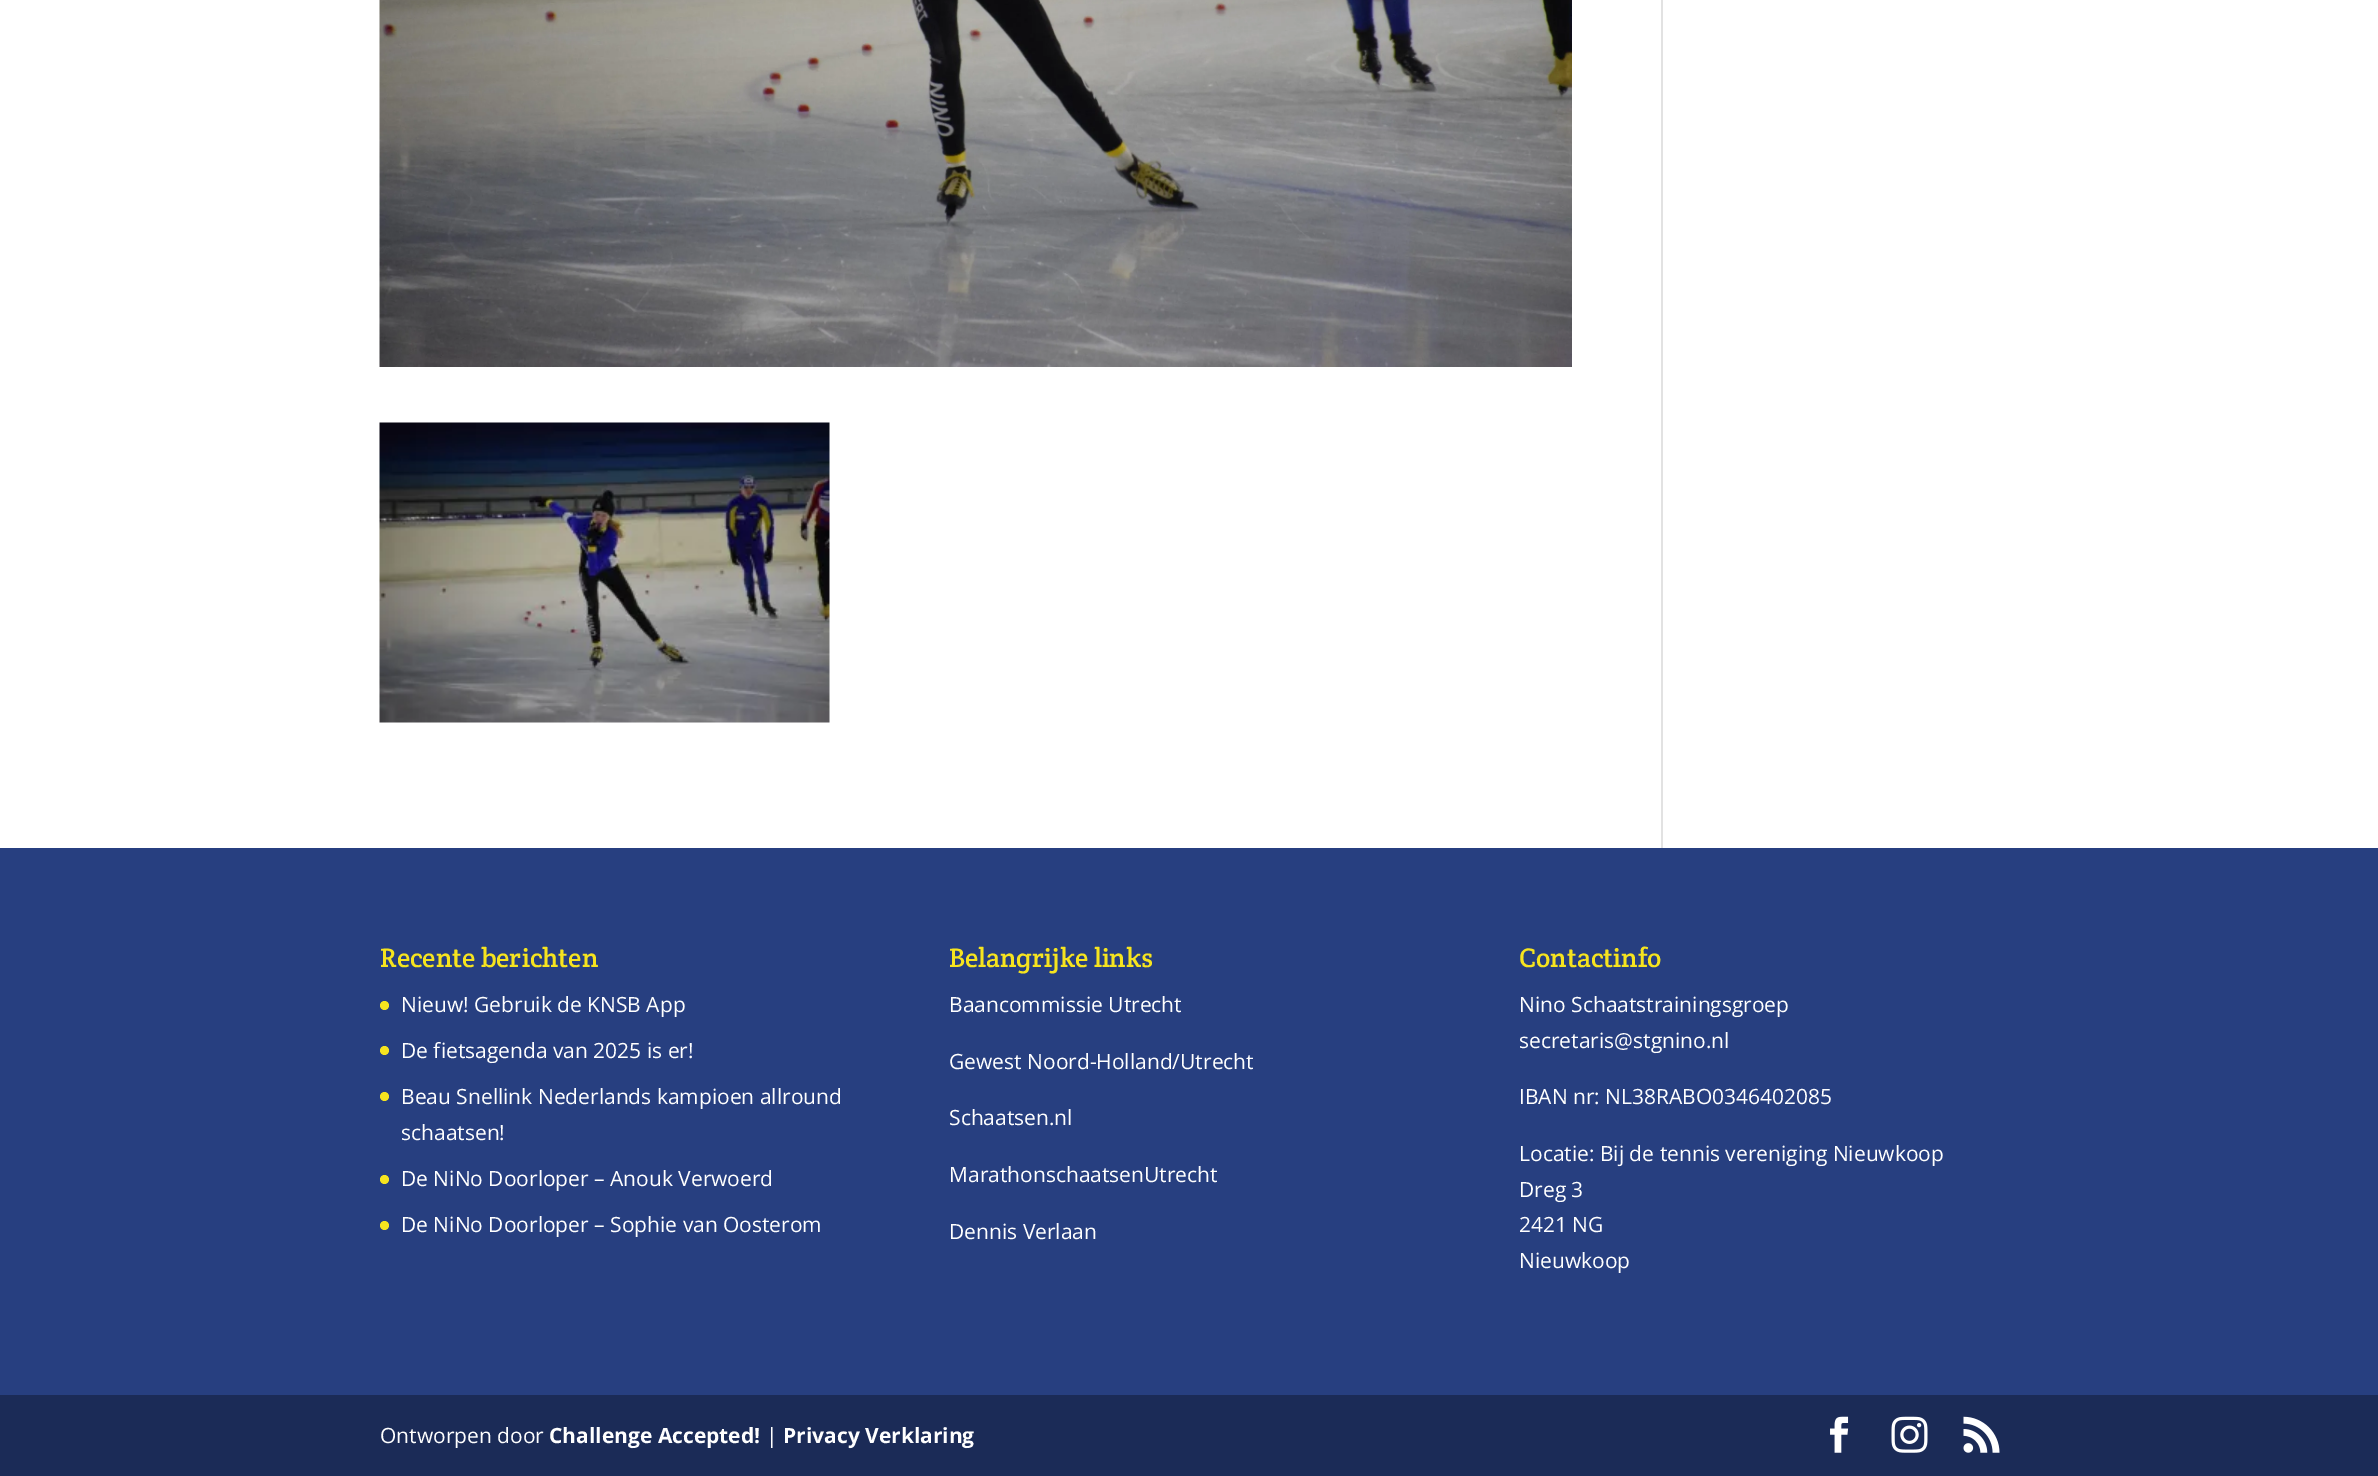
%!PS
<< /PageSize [2378 1476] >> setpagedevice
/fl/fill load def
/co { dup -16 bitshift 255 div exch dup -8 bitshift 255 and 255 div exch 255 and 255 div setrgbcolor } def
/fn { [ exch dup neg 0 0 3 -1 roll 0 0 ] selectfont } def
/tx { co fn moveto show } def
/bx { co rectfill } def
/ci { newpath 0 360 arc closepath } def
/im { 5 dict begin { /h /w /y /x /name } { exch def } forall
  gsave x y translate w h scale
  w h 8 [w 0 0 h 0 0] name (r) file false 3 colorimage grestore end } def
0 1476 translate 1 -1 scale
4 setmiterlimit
0 0 2378 1476 16#FFFFFF bx
(media/1.raw) 379 0 1193 367 im
(media/2.raw) 379 422 451 301 im
1661 0 2 848 16#E2E2E2 bx
0 848 2378 547 16#273F80 bx
16#F6E41F co
384.5 1005.5 4.5 ci fl
384.5 1050.5 4.5 ci fl
384.5 1096.5 4.5 ci fl
384.5 1179.5 4.5 ci fl
384.5 1225.5 4.5 ci fl
0 1395 2378 81 16#1B2B57 bx
(media/3.raw) 1830 1416 19 37 im
(media/4.raw) 1891 1416 37 37 im
(media/5.raw) 1963 1416 37 37 im
(Recente berichten) 380 967 /CreteRound-Regular 27 16#F6E41F tx
(Nieuw! Gebruik de KNSB App) 401 1012 /OpenSans-Regular 21 16#FFFFFF tx
(De fietsagenda van 2025 is er!) 401 1058 /OpenSans-Regular 21 16#FFFFFF tx
(Beau Snellink Nederlands kampioen allround) 401 1104 /OpenSans-Regular 21 16#FFFFFF tx
(schaatsen!) 401 1140 /OpenSans-Regular 21 16#FFFFFF tx
(De NiNo Doorloper – Anouk Verwoerd) 401 1186 /OpenSans-Regular 21 16#FFFFFF tx
(De NiNo Doorloper – Sophie van Oosterom) 401 1232 /OpenSans-Regular 21 16#FFFFFF tx
(Belangrijke links) 949 967 /CreteRound-Regular 27 16#F6E41F tx
(Baancommissie Utrecht) 949 1012 /OpenSans-Regular 21 16#FFFFFF tx
(Gewest Noord-Holland/Utrecht) 949 1069 /OpenSans-Regular 21 16#FFFFFF tx
(Schaatsen.nl) 949 1125 /OpenSans-Regular 21 16#FFFFFF tx
(MarathonschaatsenUtrecht) 949 1182 /OpenSans-Regular 21 16#FFFFFF tx
(Dennis Verlaan) 949 1239 /OpenSans-Regular 21 16#FFFFFF tx
(Contactinfo) 1519 967 /CreteRound-Regular 27 16#F6E41F tx
(Nino Schaatstrainingsgroep) 1519 1012 /OpenSans-Regular 21 16#FFFFFF tx
(secretaris@stgnino.nl) 1519 1048 /OpenSans-Regular 21 16#FFFFFF tx
(IBAN nr: NL38RABO0346402085) 1519 1104 /OpenSans-Regular 21 16#FFFFFF tx
(Locatie: Bij de tennis vereniging Nieuwkoop) 1519 1161 /OpenSans-Regular 21 16#FFFFFF tx
(Dreg 3) 1519 1197 /OpenSans-Regular 21 16#FFFFFF tx
(2421 NG) 1519 1232 /OpenSans-Regular 21 16#FFFFFF tx
(Nieuwkoop) 1519 1268 /OpenSans-Regular 21 16#FFFFFF tx
(Ontworpen door) 380 1443 /OpenSans-Regular 21 16#FFFFFF tx
(Challenge Accepted!) 549 1443 /OpenSans-Bold 21 16#FFFFFF tx
(|) 766 1443 /OpenSans-Regular 21 16#FFFFFF tx
(Privacy Verklaring) 783 1443 /OpenSans-Bold 21 16#FFFFFF tx
showpage
